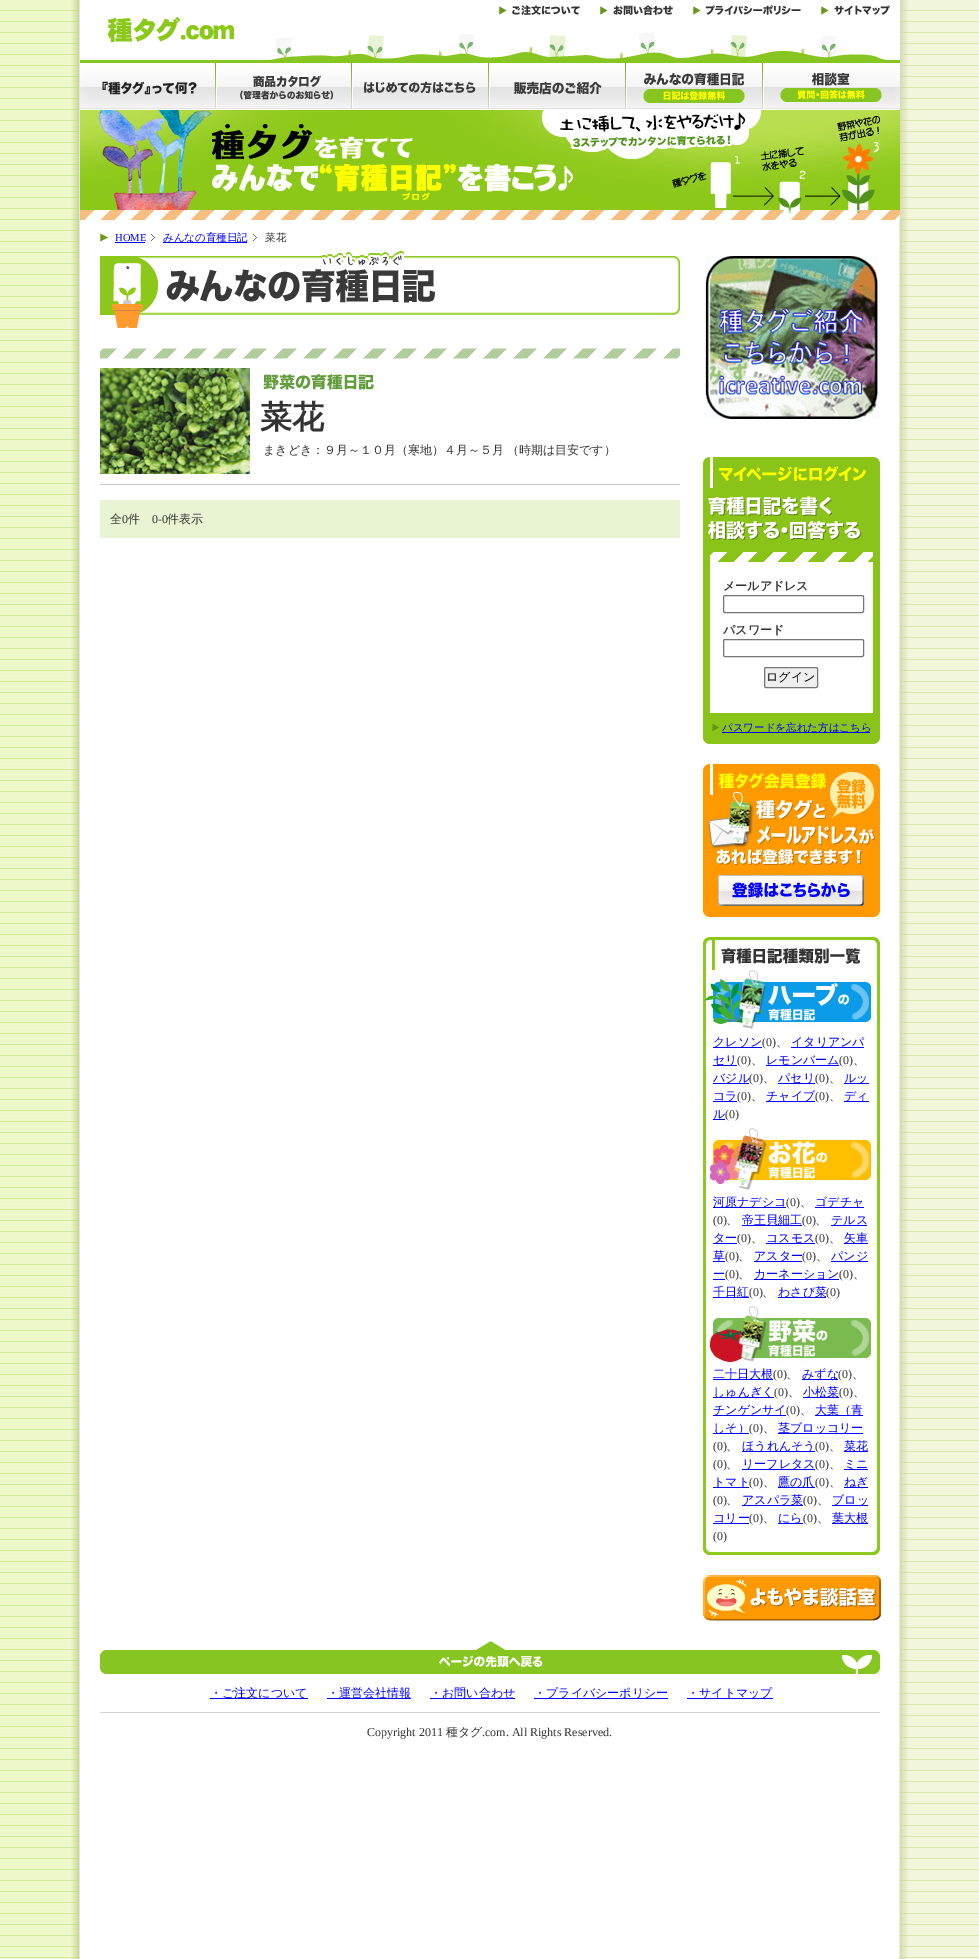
%!PS
<< /PageSize [979 1959] >> setpagedevice
/mt/moveto load def
/fl/fill load def
/st/stroke load def
/gs/gsave load def
/gr/grestore load def
/co { dup -16 bitshift 255 div exch dup -8 bitshift 255 and 255 div exch 255 and 255 div setrgbcolor } def
/fn { [ exch dup neg 0 0 3 -1 roll 0 0 ] selectfont } def
/tx { co fn moveto show } def
/bx { co rectfill } def
/rr { 5 dict begin { /r /h /w /y /x } { exch def } forall
  x r add y moveto x w add y 2 copy h add r arct x w add y h add x 1 index r arct
  x y h add x y r arct x y 2 copy exch w add exch r arct closepath end } def
/im { 5 dict begin { /h /w /y /x /name } { exch def } forall
  gsave x y translate w h scale
  w h 8 [w 0 0 h 0 0] name (r) file false 3 colorimage grestore end } def
0 1959 translate 1 -1 scale
4 setmiterlimit
0 0 979 1959 16#FFFFFF bx
(media/1.raw) 0 0 979 1959 im
(media/2.raw) 80 0 820 63 im
(media/3.raw) 499 5 13 10 im
(media/4.raw) 512 5 68 10 im
(media/3.raw) 600 5 13 10 im
(media/5.raw) 613 5 60 10 im
(media/6.raw) 693 5 12 10 im
(media/7.raw) 705 5 96 10 im
(media/3.raw) 821 5 13 10 im
(media/8.raw) 834 5 56 10 im
(media/9.raw) 107 17 127 25 im
(media/10.raw) 80 63 136 46 im
(media/11.raw) 80 71 135 37 im
(media/12.raw) 216 63 136 6 im
(media/13.raw) 216 69 136 40 im
(media/14.raw) 352 63 137 46 im
(media/15.raw) 352 70 136 38 im
(media/16.raw) 489 63 137 46 im
(media/17.raw) 489 70 136 38 im
(media/18.raw) 626 63 137 46 im
(media/19.raw) 626 70 136 38 im
(media/20.raw) 763 63 137 46 im
(media/21.raw) 763 70 137 38 im
(media/22.raw) 80 110 820 110 im
(media/23.raw) 100 233 8 9 im
115 242 30 1 16#0000FF bx
(media/24.raw) 151 234 4 7 im
163 242 84 1 16#0000FF bx
(media/24.raw) 253 234 4 7 im
(media/25.raw) 100 251 580 77 im
(media/26.raw) 100 348 580 42 im
100 484 580 1 16#CCCCCC bx
(media/27.raw) 100 368 150 106 im
100 500 580 38 16#E9F4D2 bx
(media/28.raw) 705 256 173 163 im
(media/29.raw) 703 457 177 287 im
16#767676 co
723.5 595.5 140 17 1.5 rr st
723.5 639.5 140 17 1.5 rr st
16#EFEFEF co
764.5 667.5 53 20 1.5 rr gs fl gr
16#767676 co
st
(media/30.raw) 712 723 7 9 im
722 732 148 1 16#0000FF bx
(media/31.raw) 703 764 177 153 im
(media/32.raw) 703 970 177 585 im
(media/33.raw) 703 937 177 33 im
(media/34.raw) 703 970 174 60 im
713 1047 49 1 16#0000FF bx
791 1047 73 1 16#0000FF bx
713 1065 24 1 16#0000FF bx
766 1065 73 1 16#0000FF bx
713 1083 36 1 16#0000FF bx
778 1083 37 1 16#0000FF bx
844 1083 25 1 16#0000FF bx
713 1101 24 1 16#0000FF bx
766 1101 49 1 16#0000FF bx
844 1101 25 1 16#0000FF bx
713 1119 12 1 16#0000FF bx
(media/35.raw) 703 1128 174 62 im
713 1207 73 1 16#0000FF bx
815 1207 49 1 16#0000FF bx
742 1225 60 1 16#0000FF bx
831 1225 36 1 16#0000FF bx
713 1243 24 1 16#0000FF bx
766 1243 49 1 16#0000FF bx
844 1243 24 1 16#0000FF bx
713 1261 12 1 16#0000FF bx
754 1261 48 1 16#0000FF bx
831 1261 37 1 16#0000FF bx
713 1279 12 1 16#0000FF bx
754 1279 85 1 16#0000FF bx
713 1297 36 1 16#0000FF bx
778 1297 48 1 16#0000FF bx
(media/36.raw) 703 1306 174 56 im
713 1379 60 1 16#0000FF bx
802 1379 36 1 16#0000FF bx
713 1397 61 1 16#0000FF bx
803 1397 36 1 16#0000FF bx
713 1415 73 1 16#0000FF bx
815 1415 48 1 16#0000FF bx
713 1433 36 1 16#0000FF bx
778 1433 85 1 16#0000FF bx
742 1451 73 1 16#0000FF bx
844 1451 24 1 16#0000FF bx
742 1469 73 1 16#0000FF bx
844 1469 24 1 16#0000FF bx
713 1487 36 1 16#0000FF bx
778 1487 37 1 16#0000FF bx
844 1487 24 1 16#0000FF bx
742 1505 61 1 16#0000FF bx
832 1505 36 1 16#0000FF bx
713 1523 36 1 16#0000FF bx
778 1523 25 1 16#0000FF bx
832 1523 36 1 16#0000FF bx
(media/37.raw) 703 1575 178 46 im
(media/38.raw) 100 1641 780 33 im
100 1712 780 1 16#D2D2D2 bx
210 1698 98 1 16#0000FF bx
327 1698 84 1 16#0000FF bx
430 1698 85 1 16#0000FF bx
534 1698 134 1 16#0000FF bx
687 1698 86 1 16#0000FF bx
(HOME) 115 241 /LiberationSerif-Regular 10.5 16#0000FF tx
(みんなの育種日記) 163 241 /WenQuanYiZenHei-Medium 10.5 16#0000FF tx
(菜花) 265 241 /WenQuanYiZenHei-Medium 10.5 16#333333 tx
(菜花) 260 428 /WenQuanYiZenHei-Bold 32 16#333333 tx
/WenQuanYiZenHei-Medium 12 fn
263 454 mt -1 0 32 (まきどき：９月～１０月（寒地）４月～５月 （時期は目安です）) widthshow
(全) 110 523 /WenQuanYiZenHei-Medium 12 16#333333 tx
(0) 122 523 /LiberationSerif-Regular 12 16#333333 tx
(件) 128 523 /WenQuanYiZenHei-Medium 12 16#333333 tx
(0-0) 152 523 /LiberationSerif-Regular 12 16#333333 tx
(件表示) 167 523 /WenQuanYiZenHei-Medium 12 16#333333 tx
(メールアドレス) 723 590 /WenQuanYiZenHei-Bold 12 16#333333 tx
(パスワード) 723 634 /WenQuanYiZenHei-Bold 12 16#333333 tx
(ログイン) 766 681 /WenQuanYiZenHei-Medium 12 16#000000 tx
(パスワードを忘れた方はこちら) 722 731 /WenQuanYiZenHei-Medium 10.5 16#0000FF tx
(クレソン) 713 1046 /WenQuanYiZenHei-Medium 12 16#0000FF tx
(\(0\)) 762 1046 /LiberationSerif-Regular 12 16#333333 tx
(、) 776 1046 /WenQuanYiZenHei-Medium 12 16#333333 tx
(イタリアンパ) 791 1046 /WenQuanYiZenHei-Medium 12 16#0000FF tx
(セリ) 713 1064 /WenQuanYiZenHei-Medium 12 16#0000FF tx
(\(0\)) 737 1064 /LiberationSerif-Regular 12 16#333333 tx
(、) 751 1064 /WenQuanYiZenHei-Medium 12 16#333333 tx
(レモンバーム) 766 1064 /WenQuanYiZenHei-Medium 12 16#0000FF tx
(\(0\)) 839 1064 /LiberationSerif-Regular 12 16#333333 tx
(、) 853 1064 /WenQuanYiZenHei-Medium 12 16#333333 tx
(バジル) 713 1082 /WenQuanYiZenHei-Medium 12 16#0000FF tx
(\(0\)) 749 1082 /LiberationSerif-Regular 12 16#333333 tx
(、) 763 1082 /WenQuanYiZenHei-Medium 12 16#333333 tx
(パセリ) 778 1082 /WenQuanYiZenHei-Medium 12 16#0000FF tx
(\(0\)) 815 1082 /LiberationSerif-Regular 12 16#333333 tx
(、) 829 1082 /WenQuanYiZenHei-Medium 12 16#333333 tx
(ルッ) 844 1082 /WenQuanYiZenHei-Medium 12 16#0000FF tx
(コラ) 713 1100 /WenQuanYiZenHei-Medium 12 16#0000FF tx
(\(0\)) 737 1100 /LiberationSerif-Regular 12 16#333333 tx
(、) 751 1100 /WenQuanYiZenHei-Medium 12 16#333333 tx
(チャイブ) 766 1100 /WenQuanYiZenHei-Medium 12 16#0000FF tx
(\(0\)) 815 1100 /LiberationSerif-Regular 12 16#333333 tx
(、) 829 1100 /WenQuanYiZenHei-Medium 12 16#333333 tx
(ディ) 844 1100 /WenQuanYiZenHei-Medium 12 16#0000FF tx
(ル) 713 1118 /WenQuanYiZenHei-Medium 12 16#0000FF tx
(\(0\)) 725 1118 /LiberationSerif-Regular 12 16#333333 tx
(河原ナデシコ) 713 1206 /WenQuanYiZenHei-Medium 12 16#0000FF tx
(\(0\)) 786 1206 /LiberationSerif-Regular 12 16#333333 tx
(、) 800 1206 /WenQuanYiZenHei-Medium 12 16#333333 tx
(ゴデチャ) 815 1206 /WenQuanYiZenHei-Medium 12 16#0000FF tx
(\(0\)) 713 1224 /LiberationSerif-Regular 12 16#333333 tx
(、) 726 1224 /WenQuanYiZenHei-Medium 12 16#333333 tx
(帝王貝細工) 742 1224 /WenQuanYiZenHei-Medium 12 16#0000FF tx
(\(0\)) 802 1224 /LiberationSerif-Regular 12 16#333333 tx
(、) 815 1224 /WenQuanYiZenHei-Medium 12 16#333333 tx
(テルス) 831 1224 /WenQuanYiZenHei-Medium 12 16#0000FF tx
(ター) 713 1242 /WenQuanYiZenHei-Medium 12 16#0000FF tx
(\(0\)) 737 1242 /LiberationSerif-Regular 12 16#333333 tx
(、) 751 1242 /WenQuanYiZenHei-Medium 12 16#333333 tx
(コスモス) 766 1242 /WenQuanYiZenHei-Medium 12 16#0000FF tx
(\(0\)) 815 1242 /LiberationSerif-Regular 12 16#333333 tx
(、) 829 1242 /WenQuanYiZenHei-Medium 12 16#333333 tx
(矢車) 844 1242 /WenQuanYiZenHei-Medium 12 16#0000FF tx
(草) 713 1260 /WenQuanYiZenHei-Medium 12 16#0000FF tx
(\(0\)) 725 1260 /LiberationSerif-Regular 12 16#333333 tx
(、) 738 1260 /WenQuanYiZenHei-Medium 12 16#333333 tx
(アスター) 754 1260 /WenQuanYiZenHei-Medium 12 16#0000FF tx
(\(0\)) 802 1260 /LiberationSerif-Regular 12 16#333333 tx
(、) 816 1260 /WenQuanYiZenHei-Medium 12 16#333333 tx
(パンジ) 831 1260 /WenQuanYiZenHei-Medium 12 16#0000FF tx
(ー) 713 1278 /WenQuanYiZenHei-Medium 12 16#0000FF tx
(\(0\)) 725 1278 /LiberationSerif-Regular 12 16#333333 tx
(カーネーション) 754 1278 /WenQuanYiZenHei-Medium 12 16#0000FF tx
(\(0\)) 839 1278 /LiberationSerif-Regular 12 16#333333 tx
(、) 738 1278 /WenQuanYiZenHei-Medium 12 16#333333 tx
(、) 853 1278 /WenQuanYiZenHei-Medium 12 16#333333 tx
(千日紅) 713 1296 /WenQuanYiZenHei-Medium 12 16#0000FF tx
(\(0\)) 749 1296 /LiberationSerif-Regular 12 16#333333 tx
(、) 762 1296 /WenQuanYiZenHei-Medium 12 16#333333 tx
(わさび菜) 778 1296 /WenQuanYiZenHei-Medium 12 16#0000FF tx
(\(0\)) 826 1296 /LiberationSerif-Regular 12 16#333333 tx
(二十日大根) 713 1378 /WenQuanYiZenHei-Medium 12 16#0000FF tx
(\(0\)) 773 1378 /LiberationSerif-Regular 12 16#333333 tx
(、) 786 1378 /WenQuanYiZenHei-Medium 12 16#333333 tx
(みずな) 802 1378 /WenQuanYiZenHei-Medium 12 16#0000FF tx
(\(0\)) 838 1378 /LiberationSerif-Regular 12 16#333333 tx
(、) 852 1378 /WenQuanYiZenHei-Medium 12 16#333333 tx
(しゅんぎく) 713 1396 /WenQuanYiZenHei-Medium 12 16#0000FF tx
(\(0\)) 774 1396 /LiberationSerif-Regular 12 16#333333 tx
(、) 788 1396 /WenQuanYiZenHei-Medium 12 16#333333 tx
(小松菜) 803 1396 /WenQuanYiZenHei-Medium 12 16#0000FF tx
(\(0\)) 839 1396 /LiberationSerif-Regular 12 16#333333 tx
(、) 853 1396 /WenQuanYiZenHei-Medium 12 16#333333 tx
(チンゲンサイ) 713 1414 /WenQuanYiZenHei-Medium 12 16#0000FF tx
(\(0\)) 786 1414 /LiberationSerif-Regular 12 16#333333 tx
(、) 800 1414 /WenQuanYiZenHei-Medium 12 16#333333 tx
(大葉（青) 815 1414 /WenQuanYiZenHei-Medium 12 16#0000FF tx
(しそ）) 713 1432 /WenQuanYiZenHei-Medium 12 16#0000FF tx
(\(0\)) 749 1432 /LiberationSerif-Regular 12 16#333333 tx
(、) 763 1432 /WenQuanYiZenHei-Medium 12 16#333333 tx
(茎ブロッコリー) 778 1432 /WenQuanYiZenHei-Medium 12 16#0000FF tx
(\(0\)) 713 1450 /LiberationSerif-Regular 12 16#333333 tx
(、) 726 1450 /WenQuanYiZenHei-Medium 12 16#333333 tx
(ほうれんそう) 742 1450 /WenQuanYiZenHei-Medium 12 16#0000FF tx
(\(0\)) 815 1450 /LiberationSerif-Regular 12 16#333333 tx
(、) 829 1450 /WenQuanYiZenHei-Medium 12 16#333333 tx
(菜花) 844 1450 /WenQuanYiZenHei-Medium 12 16#0000FF tx
(\(0\)) 713 1468 /LiberationSerif-Regular 12 16#333333 tx
(、) 726 1468 /WenQuanYiZenHei-Medium 12 16#333333 tx
(リーフレタス) 742 1468 /WenQuanYiZenHei-Medium 12 16#0000FF tx
(\(0\)) 815 1468 /LiberationSerif-Regular 12 16#333333 tx
(、) 829 1468 /WenQuanYiZenHei-Medium 12 16#333333 tx
(ミニ) 844 1468 /WenQuanYiZenHei-Medium 12 16#0000FF tx
(トマト) 713 1486 /WenQuanYiZenHei-Medium 12 16#0000FF tx
(\(0\)) 749 1486 /LiberationSerif-Regular 12 16#333333 tx
(、) 763 1486 /WenQuanYiZenHei-Medium 12 16#333333 tx
(鷹の爪) 778 1486 /WenQuanYiZenHei-Medium 12 16#0000FF tx
(\(0\)) 815 1486 /LiberationSerif-Regular 12 16#333333 tx
(、) 829 1486 /WenQuanYiZenHei-Medium 12 16#333333 tx
(ねぎ) 844 1486 /WenQuanYiZenHei-Medium 12 16#0000FF tx
(\(0\)) 713 1504 /LiberationSerif-Regular 12 16#333333 tx
(、) 726 1504 /WenQuanYiZenHei-Medium 12 16#333333 tx
(アスパラ菜) 742 1504 /WenQuanYiZenHei-Medium 12 16#0000FF tx
(\(0\)) 803 1504 /LiberationSerif-Regular 12 16#333333 tx
(、) 817 1504 /WenQuanYiZenHei-Medium 12 16#333333 tx
(ブロッ) 832 1504 /WenQuanYiZenHei-Medium 12 16#0000FF tx
(コリー) 713 1522 /WenQuanYiZenHei-Medium 12 16#0000FF tx
(\(0\)) 749 1522 /LiberationSerif-Regular 12 16#333333 tx
(、) 763 1522 /WenQuanYiZenHei-Medium 12 16#333333 tx
(にら) 778 1522 /WenQuanYiZenHei-Medium 12 16#0000FF tx
(\(0\)) 803 1522 /LiberationSerif-Regular 12 16#333333 tx
(、) 817 1522 /WenQuanYiZenHei-Medium 12 16#333333 tx
(葉大根) 832 1522 /WenQuanYiZenHei-Medium 12 16#0000FF tx
(\(0\)) 713 1540 /LiberationSerif-Regular 12 16#333333 tx
(・ご注文について) 210 1697 /WenQuanYiZenHei-Medium 12 16#0000FF tx
(・運営会社情報) 327 1697 /WenQuanYiZenHei-Medium 12 16#0000FF tx
(・お問い合わせ) 430 1697 /WenQuanYiZenHei-Medium 12 16#0000FF tx
(・プライバシーポリシー) 534 1697 /WenQuanYiZenHei-Medium 12 16#0000FF tx
(・サイトマップ) 687 1697 /WenQuanYiZenHei-Medium 12 16#0000FF tx
(Copyright 2011) 367 1736 /LiberationSerif-Regular 12 16#333333 tx
(種タグ) 446 1736 /WenQuanYiZenHei-Medium 12 16#333333 tx
(.com. All Rights Reserved.) 482 1736 /LiberationSerif-Regular 12 16#333333 tx
showpage
